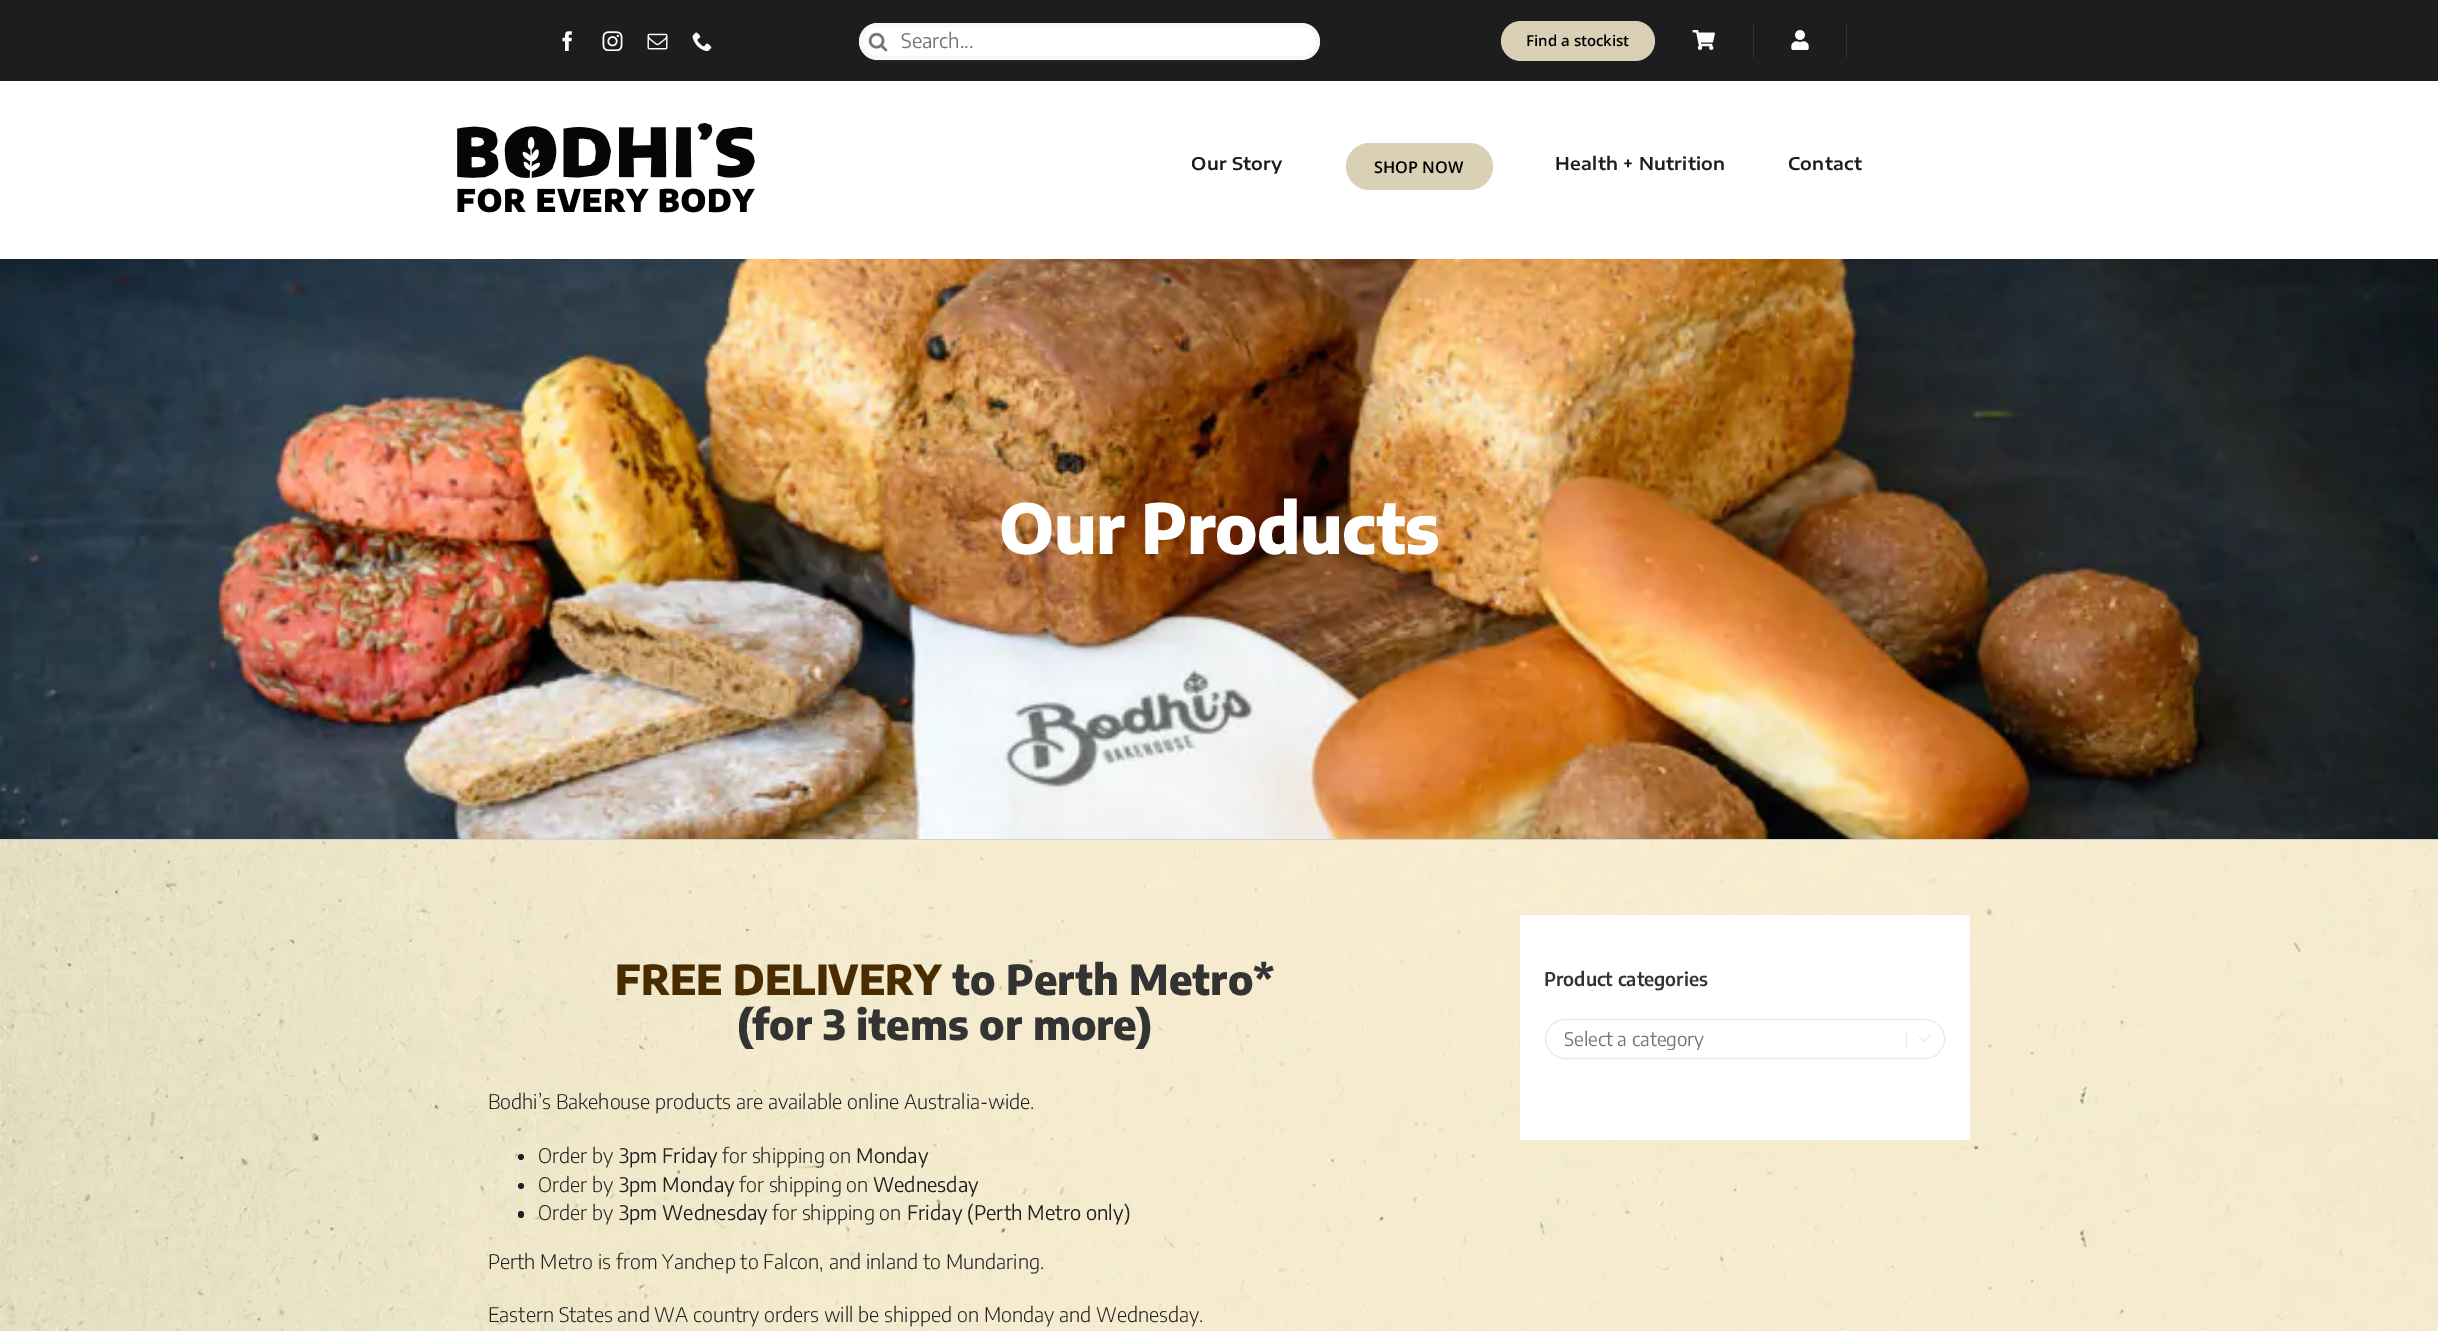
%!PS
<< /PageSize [2438 1331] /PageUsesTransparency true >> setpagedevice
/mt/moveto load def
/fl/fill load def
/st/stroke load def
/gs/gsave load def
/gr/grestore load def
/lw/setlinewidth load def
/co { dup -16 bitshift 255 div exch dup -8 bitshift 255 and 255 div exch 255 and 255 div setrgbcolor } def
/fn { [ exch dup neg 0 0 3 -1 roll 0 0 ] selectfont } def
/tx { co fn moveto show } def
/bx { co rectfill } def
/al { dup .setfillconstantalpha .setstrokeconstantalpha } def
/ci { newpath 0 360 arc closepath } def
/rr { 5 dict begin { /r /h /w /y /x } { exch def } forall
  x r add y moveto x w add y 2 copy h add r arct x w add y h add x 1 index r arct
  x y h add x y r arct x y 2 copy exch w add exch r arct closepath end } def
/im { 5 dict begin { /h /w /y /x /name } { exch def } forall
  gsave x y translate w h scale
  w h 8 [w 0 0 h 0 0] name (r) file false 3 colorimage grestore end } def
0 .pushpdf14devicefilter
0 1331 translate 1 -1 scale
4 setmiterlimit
0 0 2438 1331 16#FFFFFF bx
0 0 2438 81 16#1B1D1E bx
(media/1.raw) 562 31 10 20 im
(media/2.raw) 602 31 21 20 im
(media/3.raw) 647 33 21 17 im
(media/4.raw) 692 32 20 19 im
16#FFFFFF co
859 23 461 37 18.5 rr fl
0.2 al
16#D9D9D9 co
4 lw
861 25 457 33 16.5 rr st
1 al
(media/5.raw) 868 32 20 20 im
16#DAD0B5 co
1501 21 154 40 20 rr fl
(media/6.raw) 1692 30 23 20 im
1753 24 1 34 16#323334 bx
(media/7.raw) 1791 30 18 20 im
1846 24 1 34 16#323334 bx
(media/8.raw) 457 123 298 90 im
16#DAD0B5 co
1346 143 147 47 23.5 rr fl
(media/9.raw) 0 259 2438 580 im
0 839 2438 1 16#D2D3D4 bx
(media/10.raw) 0 840 2438 491 im
16#212121 co
521 1157 3 ci fl
521 1186 3 ci fl
518 1211 6 7 3 rr fl
1520 915 450 225 16#FFFFFF bx
16#E8E8E8 co
1 lw
1545.5 1019.5 399 39 19.5 rr st
0.5 al
16#FFFFFF co
1925 1039 19 ci fl
1 al
1906 1030 1 19 16#E8E8E8 bx
(media/11.raw) 1918 1035 13 7 im
(Search...) 901 48 /EncodeSansCondensed-Regular 20 16#73767A tx
(Find a stockist) 1526 46 /OpenSans-SemiBold 15 16#000000 tx
/EncodeSansExpanded-SemiBold 17.5 fn
16#1B1D1E co
1191 170 mt .25 0 (Our Story) ashow
(SHOP NOW) 1374 173 /OpenSans-SemiBold 16.25 16#000000 tx
/EncodeSansExpanded-SemiBold 17.5 fn
16#1B1D1E co
1555 170 mt .25 0 (Health + Nutrition) ashow
1788 170 mt .25 0 (Contact) ashow
/EncodeSansCondensed-ExtraBold 68.75 fn
16#FFFFFF co
999 554 mt -.6 0 (Our Products) ashow
(FREE DELIVERY) 615 995 /EncodeSansCondensed-ExtraBold 41.25 16#492C00 tx
(to Perth Metro*) 952 995 /EncodeSansCondensed-ExtraBold 41.25 16#333333 tx
(\(for 3 items or more\)) 737 1040 /EncodeSansCondensed-ExtraBold 41.25 16#333333 tx
(Bodhi’s Bakehouse products are available online Australia-wide.) 488 1109 /EncodeSansCondensed-Light 20 16#212121 tx
(Order by) 538 1163 /EncodeSansCondensed-Light 20 16#212121 tx
(3pm Friday) 619 1163 /EncodeSansCondensed-Regular 20 16#212121 tx
(for shipping on) 722 1163 /EncodeSansCondensed-Light 20 16#212121 tx
(Monday) 856 1163 /EncodeSansCondensed-Regular 20 16#212121 tx
(Order by) 538 1192 /EncodeSansCondensed-Light 20 16#212121 tx
(3pm Monday) 619 1192 /EncodeSansCondensed-Regular 20 16#212121 tx
(for shipping on) 739 1192 /EncodeSansCondensed-Light 20 16#212121 tx
(Wednesday) 873 1192 /EncodeSansCondensed-Regular 20 16#212121 tx
(Order by) 538 1220 /EncodeSansCondensed-Light 20 16#212121 tx
(3pm Wednesday) 619 1220 /EncodeSansCondensed-Regular 20 16#212121 tx
(for shipping on) 772 1220 /EncodeSansCondensed-Light 20 16#212121 tx
(Friday \(Perth Metro only\)) 907 1220 /EncodeSansCondensed-Regular 20 16#212121 tx
(Perth Metro is from Yanchep to Falcon, and inland to Mundaring.) 488 1269 /EncodeSansCondensed-Light 20 16#212121 tx
(Eastern States and WA country orders will be shipped on Monday and Wednesday.) 488 1322 /EncodeSansCondensed-Light 20 16#212121 tx
(Product categories) 1544 986 /EncodeSansCondensed-SemiBold 18.75 16#333333 tx
gs
1565 1028 360 22 rectclip
(Select a category) 1564 1046 /EncodeSansCondensed-Regular 18.75 16#73767A tx
gr
.poppdf14devicefilter showpage
